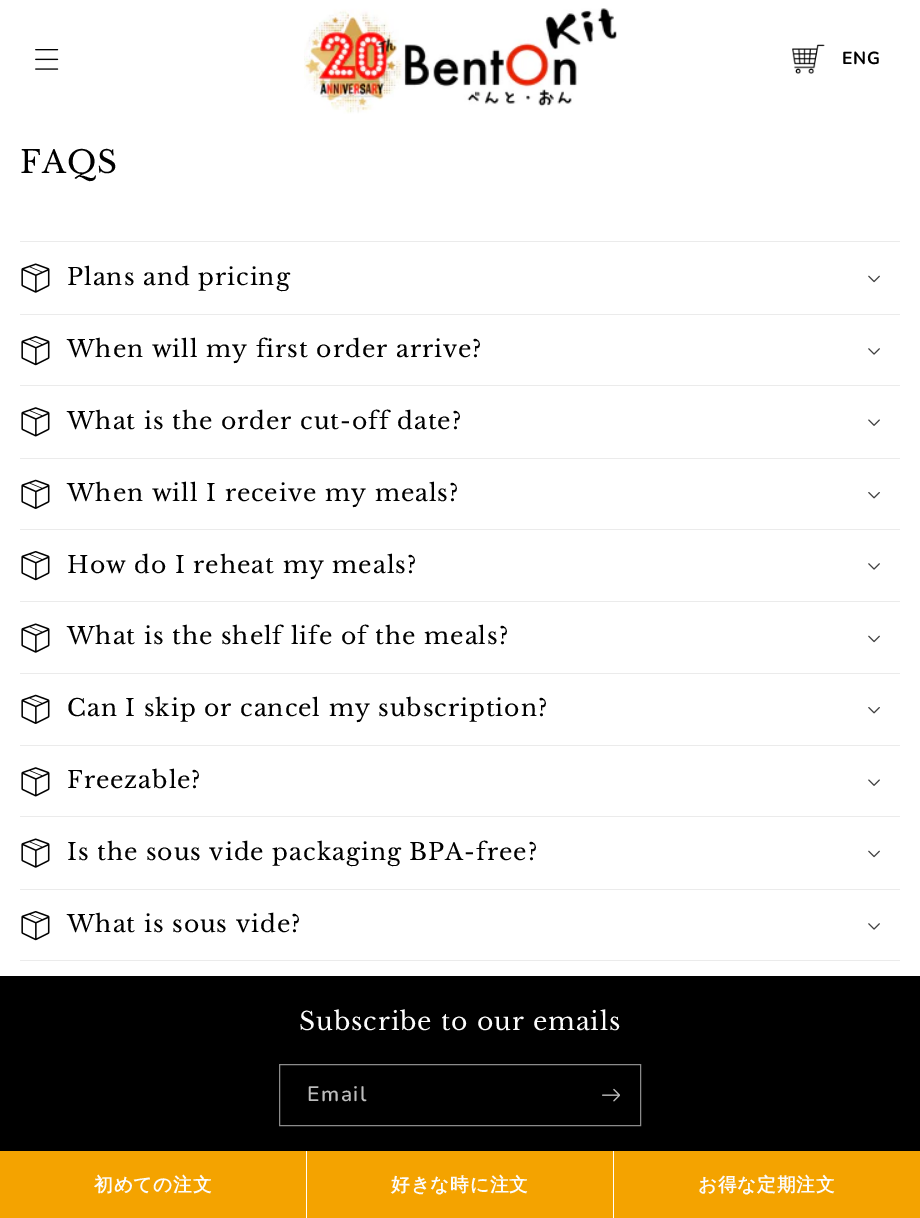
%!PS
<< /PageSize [920 1218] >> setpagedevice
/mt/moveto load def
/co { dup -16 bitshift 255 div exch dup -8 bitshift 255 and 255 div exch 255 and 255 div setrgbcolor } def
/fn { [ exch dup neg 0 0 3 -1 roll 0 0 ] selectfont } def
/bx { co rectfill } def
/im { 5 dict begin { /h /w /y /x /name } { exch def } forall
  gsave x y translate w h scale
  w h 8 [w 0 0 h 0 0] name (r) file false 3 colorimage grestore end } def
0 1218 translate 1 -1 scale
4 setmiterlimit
0 0 920 1218 16#FFFFFF bx
(media/1.raw) 35 49 24 21 im
(media/2.raw) 304 8 313 106 im
(media/3.raw) 792 44 33 30 im
20 241 880 1 16#EBEBEB bx
20 314 880 1 16#EBEBEB bx
(media/4.raw) 21 263 29 30 im
(media/5.raw) 868 275 12 8 im
20 385 880 1 16#EBEBEB bx
(media/6.raw) 21 336 29 30 im
(media/7.raw) 868 348 12 7 im
20 458 880 1 16#EBEBEB bx
(media/8.raw) 21 407 29 30 im
(media/9.raw) 868 419 12 7 im
20 529 880 1 16#EBEBEB bx
(media/10.raw) 21 479 29 30 im
(media/11.raw) 868 492 12 7 im
20 601 880 1 16#EBEBEB bx
(media/6.raw) 21 551 29 30 im
(media/7.raw) 868 563 12 7 im
20 673 880 1 16#EBEBEB bx
(media/4.raw) 21 623 29 30 im
(media/5.raw) 868 635 12 8 im
20 745 880 1 16#EBEBEB bx
(media/10.raw) 21 694 29 30 im
(media/11.raw) 868 707 12 7 im
20 816 880 1 16#EBEBEB bx
(media/8.raw) 21 767 29 30 im
(media/9.raw) 868 779 12 7 im
20 889 880 1 16#EBEBEB bx
(media/4.raw) 21 838 29 30 im
(media/5.raw) 868 850 12 8 im
20 960 880 1 16#EBEBEB bx
(media/6.raw) 21 911 29 30 im
(media/7.raw) 868 923 12 7 im
0 976 920 175 16#000000 bx
16#8B8B8B co
279.5 1064.5 361 61 rectstroke
(media/12.raw) 602 1088 18 14 im
0 1151 613 67 16#F4A300 bx
306 1151 1 67 16#FFFFFF bx
614 1151 306 67 16#F4A300 bx
/Nunito-Bold 17.5 fn
16#000000 co
842 64 mt .75 0 (ENG) ashow
/LibreBaskerville-Regular 31 fn
20 173 mt .95 0 (FAQS) ashow
/LibreBaskerville-Regular 23.4 fn
67 285 mt .95 0 (Plans and pricing) ashow
67 357 mt .95 0 (When will my first order arrive?) ashow
67 429 mt .95 0 (What is the order cut-off date?) ashow
67 501 mt .95 0 (When will I receive my meals?) ashow
67 573 mt .95 0 (How do I reheat my meals?) ashow
67 644 mt .95 0 (What is the shelf life of the meals?) ashow
67 716 mt .95 0 (Can I skip or cancel my subscription?) ashow
67 788 mt .95 0 (Freezable?) ashow
67 860 mt .95 0 (Is the sous vide packaging BPA-free?) ashow
67 932 mt .95 0 (What is sous vide?) ashow
/LibreBaskerville-Regular 25 fn
16#FCFCFC co
299 1030 mt .95 0 (Subscribe to our emails) ashow
/Nunito-SemiBold 21 fn
16#BDBDBD co
307 1101 mt 1.5 0 (Email) ashow
/WenQuanYiZenHei-Bold 18.75 fn
16#FCFCFC co
94 1191 mt .75 0 (初めての注文) ashow
391 1191 mt .75 0 (好きな時に注文) ashow
698 1191 mt .75 0 (お得な定期注文) ashow
showpage
